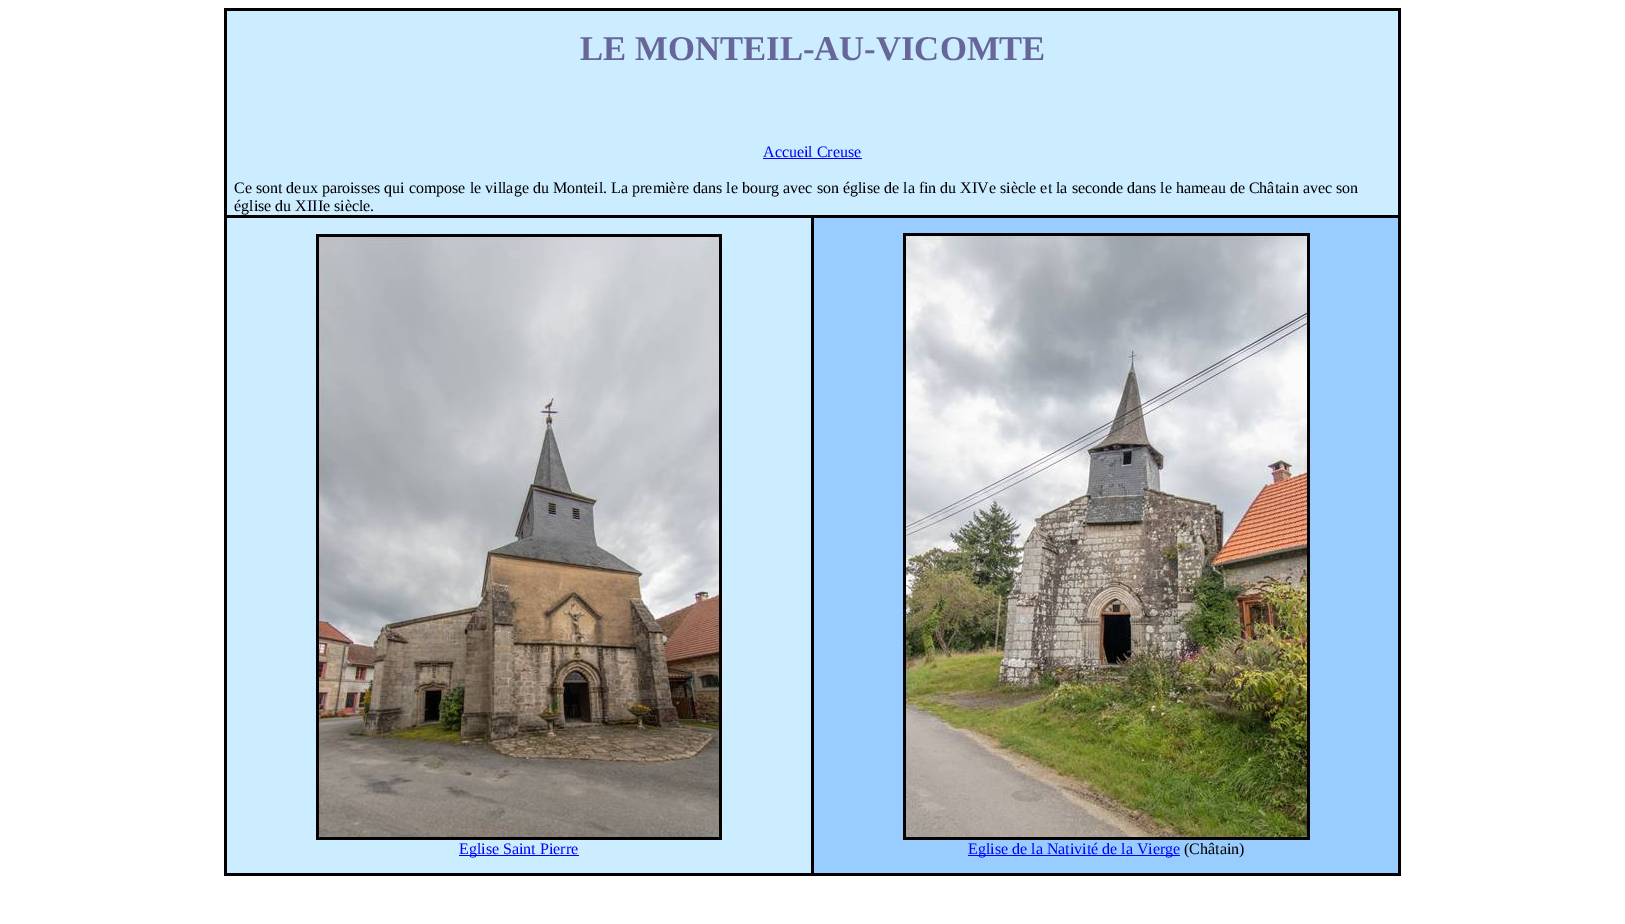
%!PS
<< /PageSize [1625 924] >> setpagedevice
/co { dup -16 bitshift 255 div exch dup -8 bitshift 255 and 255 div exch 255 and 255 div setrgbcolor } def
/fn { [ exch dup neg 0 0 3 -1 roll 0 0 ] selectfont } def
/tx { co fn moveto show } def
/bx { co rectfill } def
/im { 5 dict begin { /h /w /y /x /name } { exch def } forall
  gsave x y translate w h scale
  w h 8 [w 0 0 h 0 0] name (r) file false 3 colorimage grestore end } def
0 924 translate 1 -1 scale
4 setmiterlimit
0 0 1625 924 16#FFFFFF bx
227 11 1171 862 16#CCECFF bx
224 8 1177 3 16#000000 bx
1398 178 3 698 16#000000 bx
1398 8 3 173 16#000000 bx
811 873 590 3 16#000000 bx
811 215 3 661 16#000000 bx
224 873 590 3 16#000000 bx
224 215 3 661 16#000000 bx
224 215 1177 3 16#000000 bx
224 178 3 40 16#000000 bx
224 8 3 173 16#000000 bx
763 158 99 1 16#0000FF bx
(media/1.raw) 316 234 406 606 im
459 855 120 1 16#0000FF bx
814 218 584 655 16#99CCFF bx
(media/2.raw) 903 233 407 607 im
968 855 212 1 16#0000FF bx
(LE MONTEIL-AU-VICOMTE) 580 60 /LiberationSerif-Bold 34.7 16#666699 tx
(Accueil Creuse) 763 157 /LiberationSerif-Regular 16 16#0000FF tx
(Ce sont deux paroisses qui compose le village du Monteil. La première dans le bourg avec son église de la fin du XIVe siècle et la seconde dans le hameau de Châtain avec son) 234 193 /LiberationSerif-Regular 16 16#000000 tx
(église du XIIIe siècle.) 234 211 /LiberationSerif-Regular 16 16#000000 tx
(Eglise Saint Pierre) 459 854 /LiberationSerif-Regular 16 16#0000FF tx
(Eglise de la Nativité de la Vierge) 968 854 /LiberationSerif-Regular 16 16#0000FF tx
(\(Châtain\)) 1184 854 /LiberationSerif-Regular 16 16#000000 tx
showpage
